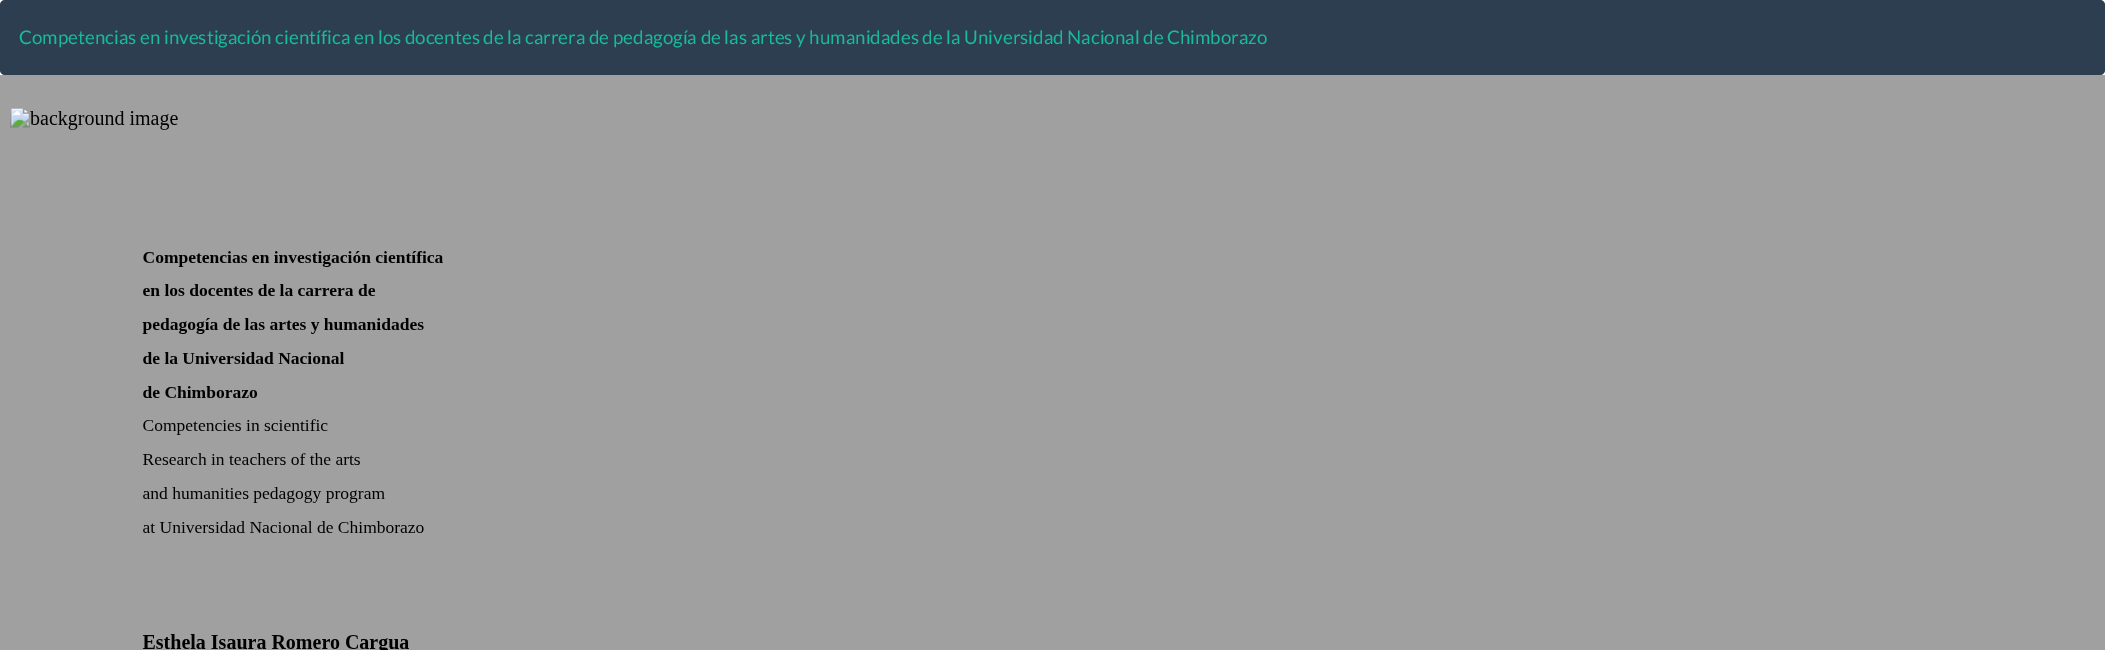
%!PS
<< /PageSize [2105 650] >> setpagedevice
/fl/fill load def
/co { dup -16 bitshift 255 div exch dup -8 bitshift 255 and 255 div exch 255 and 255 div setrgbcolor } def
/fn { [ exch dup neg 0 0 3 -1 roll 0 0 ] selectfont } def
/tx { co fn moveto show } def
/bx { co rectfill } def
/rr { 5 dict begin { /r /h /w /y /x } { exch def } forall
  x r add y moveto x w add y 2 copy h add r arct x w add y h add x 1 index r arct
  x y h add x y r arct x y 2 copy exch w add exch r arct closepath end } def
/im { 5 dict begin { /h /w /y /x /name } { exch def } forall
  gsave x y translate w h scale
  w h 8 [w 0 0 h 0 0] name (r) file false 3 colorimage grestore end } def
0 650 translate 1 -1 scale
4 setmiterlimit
0 0 2105 650 16#FFFFFF bx
16#2C3E50 co
0 0 2105 75 5 rr fl
(media/1.raw) 0 75 2105 575 im
(Competencias en investigación científica en los docentes de la carrera de pedagogía de las artes y humanidades de la Universidad Nacional de Chimborazo) 19 44 /Lato-Regular 18.75 16#18BC9C tx
showpage
